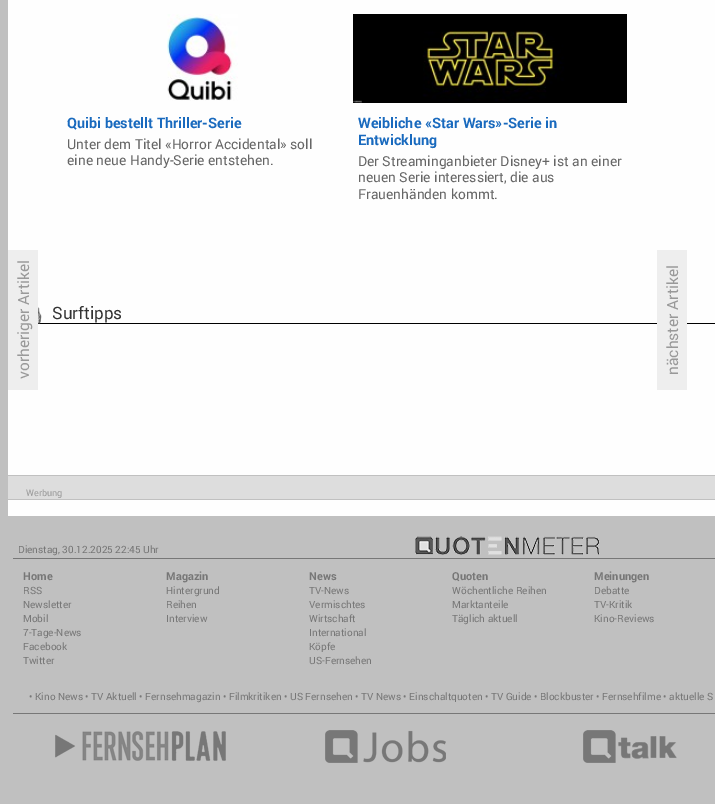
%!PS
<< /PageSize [715 804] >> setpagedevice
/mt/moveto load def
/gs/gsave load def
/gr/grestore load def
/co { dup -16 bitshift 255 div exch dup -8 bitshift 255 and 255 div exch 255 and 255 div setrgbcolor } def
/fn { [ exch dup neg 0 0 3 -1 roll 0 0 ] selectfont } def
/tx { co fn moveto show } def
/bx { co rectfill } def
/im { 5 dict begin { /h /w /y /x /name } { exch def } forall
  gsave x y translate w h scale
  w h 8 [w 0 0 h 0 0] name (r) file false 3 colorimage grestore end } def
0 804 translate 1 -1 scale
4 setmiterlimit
0 0 715 804 16#C0C0C0 bx
8 0 707 516 16#FEFEFE bx
(media/1.raw) 167 14 71 87 im
(media/2.raw) 353 14 274 89 im
8 250 30 140 16#EEEEEE bx
38 323 677 1 16#000000 bx
657 250 30 140 16#EEEEEE bx
(media/3.raw) 38 307 4 17 im
8 476 707 23 16#DDDDDD bx
8 475 707 1 16#C0C0C0 bx
8 499 707 1 16#C0C0C0 bx
13 558 702 1 16#777777 bx
(media/4.raw) 415 536 185 19 im
13 713 702 1 16#777777 bx
(media/5.raw) 55 731 171 30 im
(media/6.raw) 325 730 121 33 im
(media/7.raw) 583 730 94 33 im
(Quibi bestellt Thriller-Serie) 67 128 /Roboto-Bold 14.4 16#196ABE tx
(Unter dem Titel «Horror Accidental» soll) 67 149 /Roboto-Regular 13.75 16#666666 tx
(eine neue Handy-Serie entstehen.) 67 165 /Roboto-Regular 13.75 16#666666 tx
(Weibliche «Star Wars»-Serie in) 358 128 /Roboto-Bold 14.4 16#196ABE tx
(Entwicklung) 358 145 /Roboto-Bold 14.4 16#196ABE tx
(Der Streaminganbieter Disney+ ist an einer) 358 166 /Roboto-Regular 13.75 16#666666 tx
(neuen Serie interessiert, die aus) 358 182 /Roboto-Regular 13.75 16#666666 tx
(Frauenhänden kommt.) 358 199 /Roboto-Regular 13.75 16#666666 tx
/Roboto-Regular 15.5 fn
16#999999 co
gs 29 379 translate -90 rotate 0 0 mt (vorheriger Artikel) show gr
gs 678 375 translate -90 rotate 0 0 mt (nächster Artikel) show gr
(Surftipps) 52 319 /Roboto-Regular 17 16#333333 tx
(Werbung) 26 496 /Roboto-Regular 9 16#999999 tx
(Dienstag, 30.12.2025 22:45 Uhr) 18 553 /Roboto-Regular 10 16#777777 tx
(Home) 23 580 /Roboto-Bold 11 16#777777 tx
(RSS) 23 594 /Roboto-Regular 10 16#777777 tx
(Newsletter) 23 608 /Roboto-Regular 10 16#777777 tx
(Mobil) 23 622 /Roboto-Regular 10 16#777777 tx
(7-Tage-News) 23 636 /Roboto-Regular 10 16#777777 tx
(Facebook) 23 650 /Roboto-Regular 10 16#777777 tx
(Twitter) 23 664 /Roboto-Regular 10 16#777777 tx
(Magazin) 166 580 /Roboto-Bold 11 16#777777 tx
(Hintergrund) 166 594 /Roboto-Regular 10 16#777777 tx
(Reihen) 166 608 /Roboto-Regular 10 16#777777 tx
(Interview) 166 622 /Roboto-Regular 10 16#777777 tx
(News) 309 580 /Roboto-Bold 11 16#777777 tx
(TV-News) 309 594 /Roboto-Regular 10 16#777777 tx
(Vermischtes) 309 608 /Roboto-Regular 10 16#777777 tx
(Wirtschaft) 309 622 /Roboto-Regular 10 16#777777 tx
(International) 309 636 /Roboto-Regular 10 16#777777 tx
(Köpfe) 309 650 /Roboto-Regular 10 16#777777 tx
(US-Fernsehen) 309 664 /Roboto-Regular 10 16#777777 tx
(Quoten) 452 580 /Roboto-Bold 11 16#777777 tx
(Wöchentliche Reihen) 452 594 /Roboto-Regular 10 16#777777 tx
(Marktanteile) 452 608 /Roboto-Regular 10 16#777777 tx
(Täglich aktuell) 452 622 /Roboto-Regular 10 16#777777 tx
(Meinungen) 594 580 /Roboto-Bold 11 16#777777 tx
(Debatte) 594 594 /Roboto-Regular 10 16#777777 tx
(TV-Kritik) 594 608 /Roboto-Regular 10 16#777777 tx
(Kino-Reviews) 594 622 /Roboto-Regular 10 16#777777 tx
(• Kino News • TV Aktuell • Fernsehmagazin • Filmkritiken • US Fernsehen • TV News • Einschaltquoten • TV Guide • Blockbuster • Fernsehfilme • aktuelle S) 29 700 /Roboto-Regular 10 16#777777 tx
showpage
